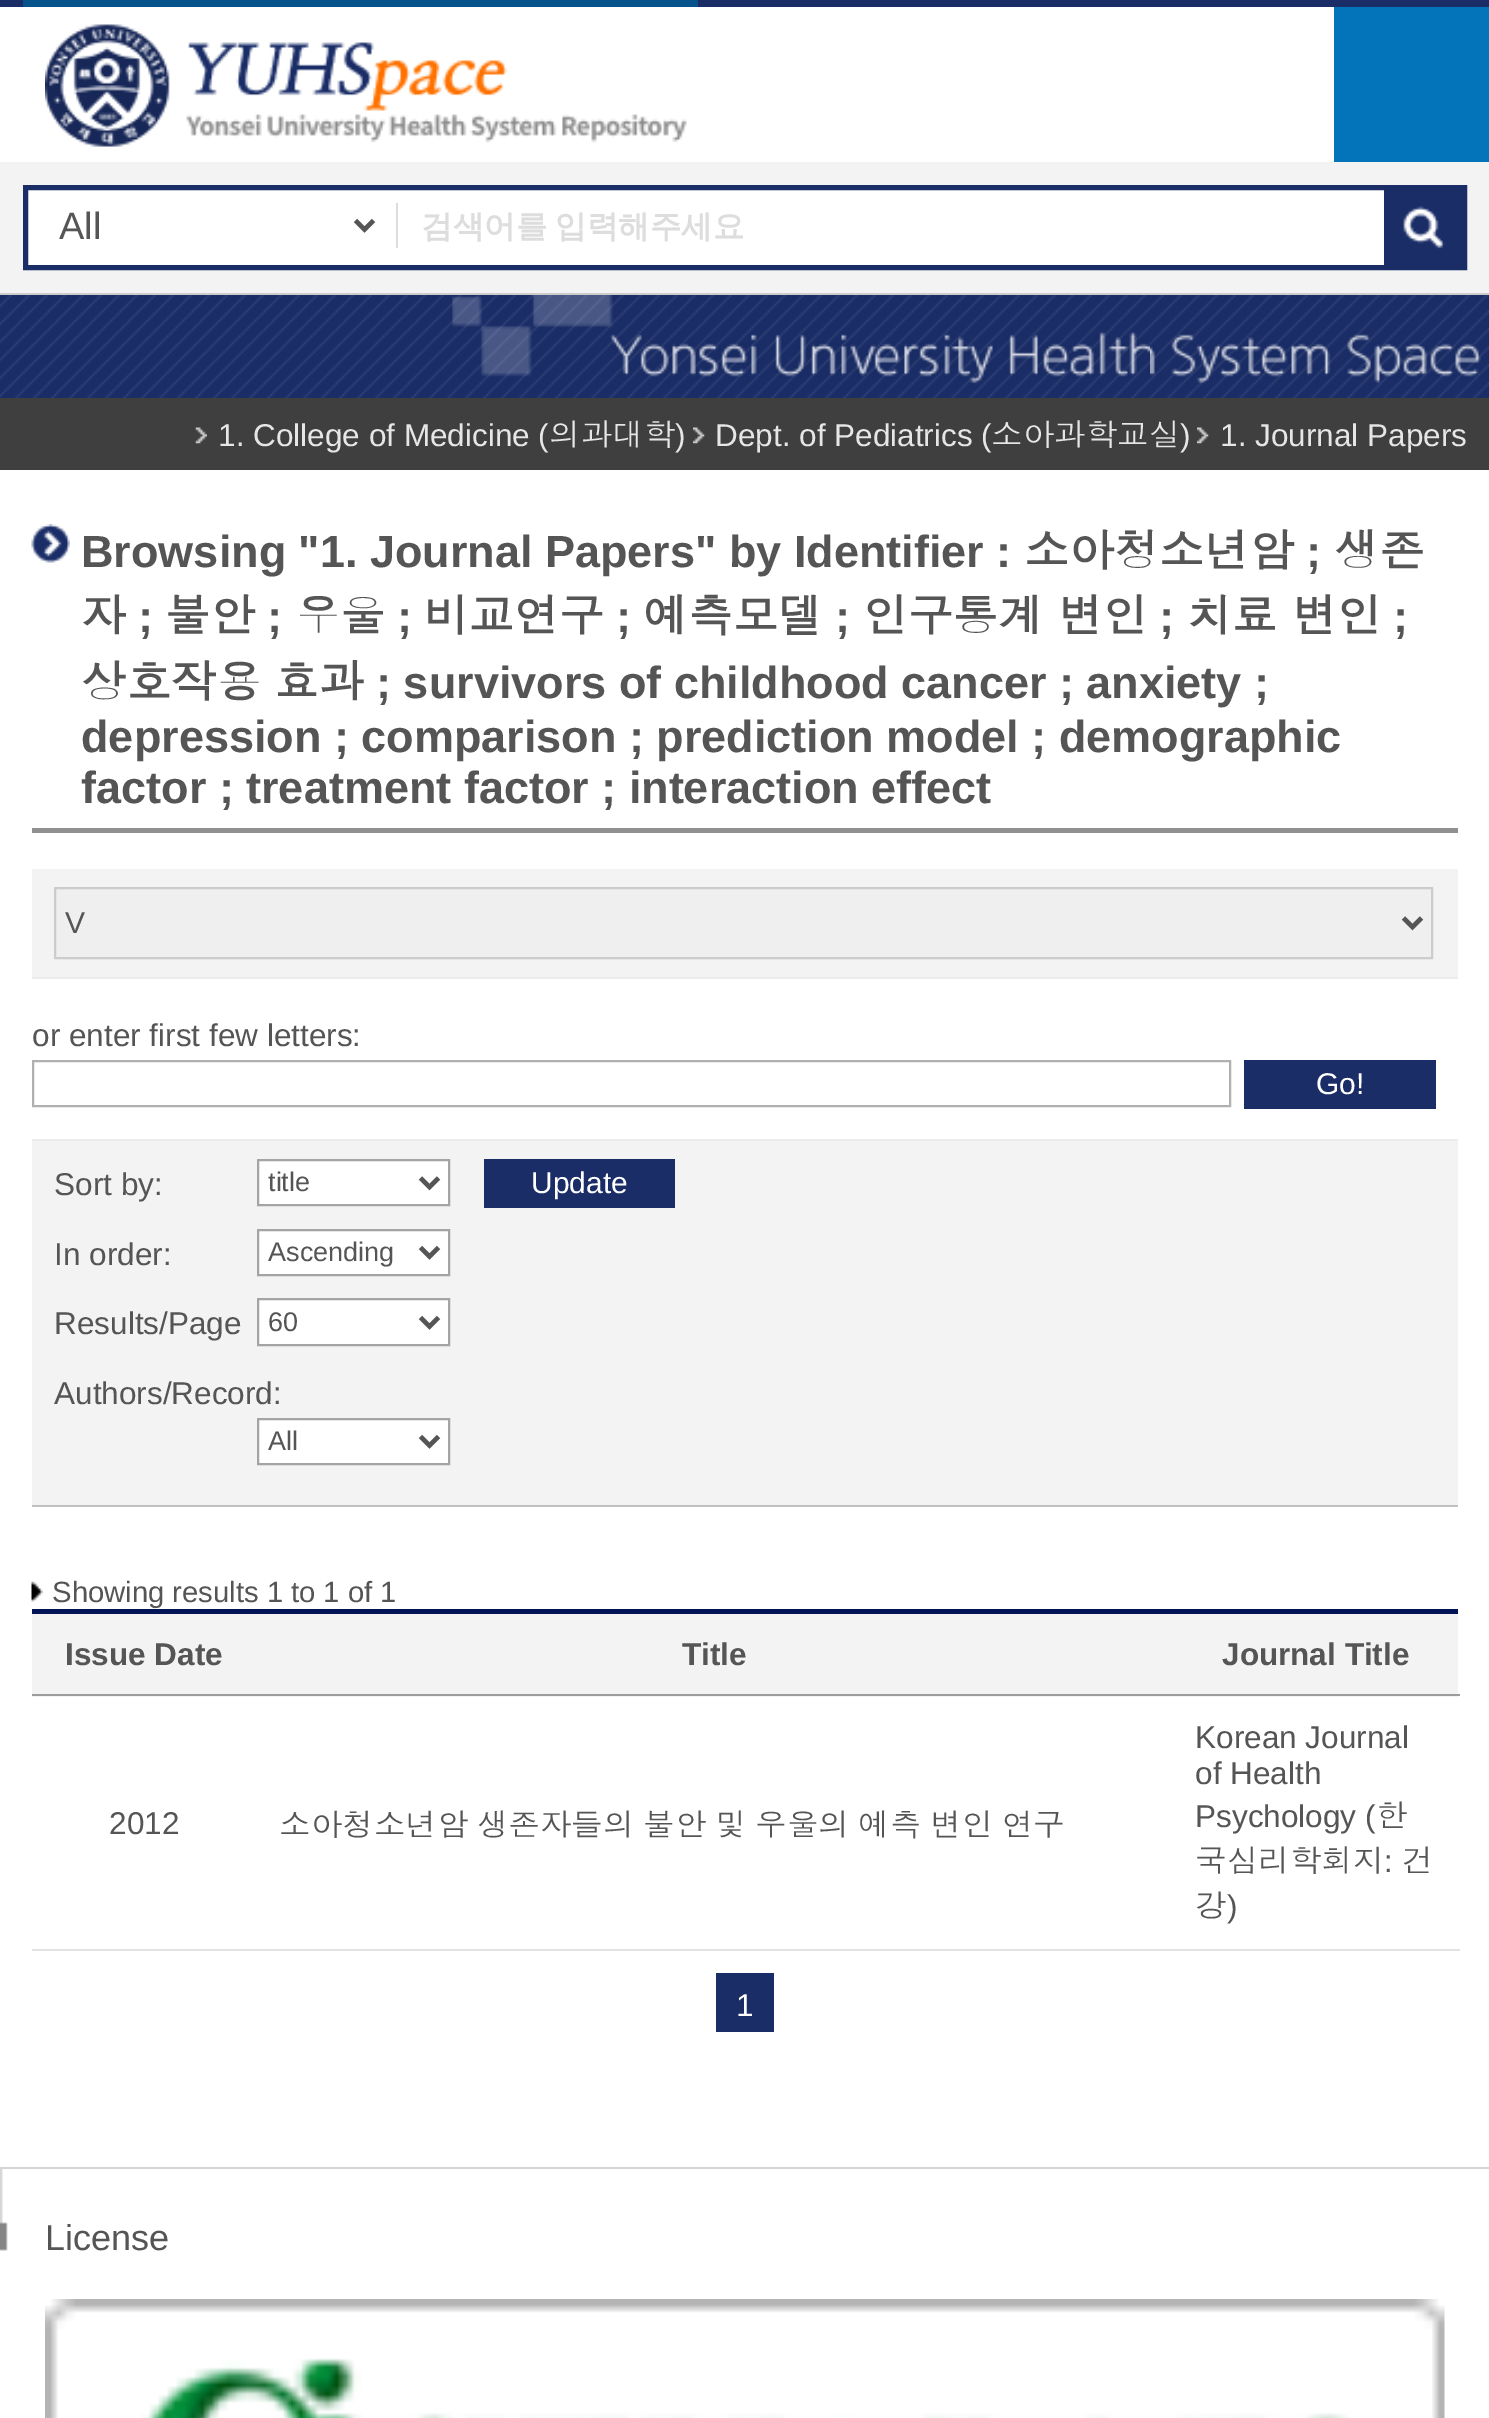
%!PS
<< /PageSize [1489 2418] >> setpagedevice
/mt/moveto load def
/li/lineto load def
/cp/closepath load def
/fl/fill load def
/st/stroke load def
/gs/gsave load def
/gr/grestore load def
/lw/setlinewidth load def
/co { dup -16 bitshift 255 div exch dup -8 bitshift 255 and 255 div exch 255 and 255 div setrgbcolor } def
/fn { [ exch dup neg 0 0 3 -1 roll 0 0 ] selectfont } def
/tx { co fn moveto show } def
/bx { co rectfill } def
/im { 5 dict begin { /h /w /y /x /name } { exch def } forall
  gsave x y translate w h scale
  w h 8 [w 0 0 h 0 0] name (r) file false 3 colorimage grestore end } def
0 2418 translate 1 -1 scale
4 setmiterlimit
0 0 1489 2418 16#FFFFFF bx
0 295 1489 103 16#1A2D67 bx
(media/1.raw) 0 295 1489 103 im
0 0 1489 7 16#1A2D67 bx
23 0 675 7 16#06528A bx
(media/2.raw) 45 24 642 123 im
1334 7 155 155 16#0373BA bx
0 162 1489 131 16#F3F3F3 bx
0 293 1489 2 16#CCCCCC bx
28 190 1356 75 16#FFFFFF bx
16#1A2D67 co
5 lw
25.5 187.5 1439 80 rectstroke
396 203 2 45 16#DDDDDD bx
16#555555 co
4.5 lw
355.5 220.5 mt 364.5 229.5 li 373.5 220.5 li st
1384 190 78 75 16#1A2D67 bx
(media/3.raw) 1403 206 42 43 im
(media/4.raw) 452 295 1029 89 im
0 398 1489 72 16#3F3F3F bx
(media/5.raw) 195 427 12 17 im
(media/6.raw) 693 427 12 17 im
(media/6.raw) 1197 427 12 17 im
(media/7.raw) 31 524 39 39 im
32 828 1426 5 16#909090 bx
32 1505 1426 2 16#C0C0C0 bx
32 869 1426 108 16#F3F3F3 bx
16#EFEFEF co
55 888 mt 1432 888 li 1432 958 li 55 958 li cp gs fl gr
16#CCCCCC co
2 lw
st
16#555555 co
4.5 lw
1403.5 918 mt 1412.5 927 li 1421.5 918 li st
32 977 1426 2 16#ECECEC bx
16#B0B0B0 co
2 lw
33 1061 1197 45 rectstroke
1244 1060 192 49 16#1A2D67 bx
32 1141 1426 364 16#F3F3F3 bx
32 1139 1426 2 16#ECECEC bx
16#FFFFFF co
258 1160 mt 449 1160 li 449 1205 li 258 1205 li cp gs fl gr
16#A4A4A4 co
st
16#555555 co
4.5 lw
420.5 1178 mt 429.5 1187 li 438.5 1178 li st
16#FFFFFF co
258 1230 mt 449 1230 li 449 1275 li 258 1275 li cp gs fl gr
16#A4A4A4 co
2 lw
st
16#555555 co
4.5 lw
420.5 1247.5 mt 429.5 1256.5 li 438.5 1247.5 li st
16#FFFFFF co
258 1299 mt 449 1299 li 449 1345 li 258 1345 li cp gs fl gr
16#A4A4A4 co
2 lw
st
16#555555 co
4.5 lw
420.5 1317.5 mt 429.5 1326.5 li 438.5 1317.5 li st
16#FFFFFF co
258 1419 mt 449 1419 li 449 1464 li 258 1464 li cp gs fl gr
16#A4A4A4 co
2 lw
st
16#555555 co
4.5 lw
420.5 1436.5 mt 429.5 1445.5 li 438.5 1436.5 li st
484 1159 191 49 16#1A2D67 bx
(media/8.raw) 31 1581 12 21 im
32 1609 1426 5 16#001357 bx
32 1614 1426 83 16#F3F3F3 bx
32 1694 1428 2 16#9B9B9B bx
32 1949 1428 2 16#E3E3E3 bx
716 1973 58 59 16#1A2D67 bx
0 2167 1489 2 16#D6D5D5 bx
(media/9.raw) 0 2169 8 82 im
(media/10.raw) 45 2299 1400 119 im
(All) 59 239 /LiberationSans-Regular 38 16#555555 tx
/WenQuanYiZenHei-Bold 31.5 fn
16#DDDDDD co
421 237 mt -1 0 32 (검색어를 입력해주세요) widthshow
(1. College of Medicine \() 218 446 /LiberationSans-Regular 31.5 16#E6E6E6 tx
(의과대학) 549 446 /Dotum-Regular 31.5 16#E6E6E6 tx
(\)) 675 446 /LiberationSans-Regular 31.5 16#E6E6E6 tx
(Dept. of Pediatrics \() 715 446 /LiberationSans-Regular 31.5 16#E6E6E6 tx
(소아과학교실) 991 446 /Dotum-Regular 31.5 16#E6E6E6 tx
(\)) 1180 446 /LiberationSans-Regular 31.5 16#E6E6E6 tx
(1. Journal Papers) 1220 446 /LiberationSans-Regular 31.5 16#E6E6E6 tx
(Browsing "1. Journal Papers" by Identifier :) 81 567 /LiberationSans-Bold 45 16#555555 tx
(소아청소년암) 1024 567 /Dotum-Bold 45 16#555555 tx
(;) 1306 567 /LiberationSans-Bold 45 16#555555 tx
(생존) 1334 567 /Dotum-Bold 45 16#555555 tx
(자) 81 632 /Dotum-Bold 45 16#555555 tx
(;) 138 632 /LiberationSans-Bold 45 16#555555 tx
(불안) 165 632 /Dotum-Bold 45 16#555555 tx
(;) 267 632 /LiberationSans-Bold 45 16#555555 tx
(우울) 295 632 /Dotum-Bold 45 16#555555 tx
(;) 397 632 /LiberationSans-Bold 45 16#555555 tx
(비교연구) 424 632 /Dotum-Bold 45 16#555555 tx
(;) 616 632 /LiberationSans-Bold 45 16#555555 tx
(예측모델) 643 632 /Dotum-Bold 45 16#555555 tx
(;) 835 632 /LiberationSans-Bold 45 16#555555 tx
(인구통계 변인) 863 632 /Dotum-Bold 45 16#555555 tx
(;) 1159 632 /LiberationSans-Bold 45 16#555555 tx
(치료 변인) 1187 632 /Dotum-Bold 45 16#555555 tx
(;) 1393 632 /LiberationSans-Bold 45 16#555555 tx
(상호작용) 81 698 /Dotum-Bold 45 16#555555 tx
(효과) 274 698 /Dotum-Bold 45 16#555555 tx
(; survivors of childhood cancer ; anxiety ;) 376 698 /LiberationSans-Bold 45 16#555555 tx
(depression ; comparison ; prediction model ; demographic) 81 752 /LiberationSans-Bold 45 16#555555 tx
(factor ; treatment factor ; interaction effect) 81 803 /LiberationSans-Bold 45 16#555555 tx
(V) 65 933 /LiberationSans-Regular 30 16#555555 tx
(or enter first few letters:) 32 1046 /LiberationSans-Regular 31.5 16#555555 tx
(Go!) 1316 1094 /LiberationSans-Regular 30 16#FFFFFF tx
(Sort by:) 54 1195 /LiberationSans-Regular 31.5 16#555555 tx
(title) 268 1191 /LiberationSans-Regular 27 16#555555 tx
(In order:) 54 1265 /LiberationSans-Regular 31.5 16#555555 tx
(Ascending) 268 1261 /LiberationSans-Regular 27 16#555555 tx
(Results/Page) 54 1334 /LiberationSans-Regular 31.5 16#555555 tx
(60) 268 1331 /LiberationSans-Regular 27 16#555555 tx
(Authors/Record:) 54 1404 /LiberationSans-Regular 31.5 16#555555 tx
(All) 268 1450 /LiberationSans-Regular 27 16#555555 tx
(Update) 531 1193 /LiberationSans-Regular 30 16#FFFFFF tx
(Showing results 1 to 1 of 1) 52 1602 /LiberationSans-Regular 29.25 16#555555 tx
(Issue Date) 65 1665 /LiberationSans-Bold 31.5 16#555555 tx
(Title) 682 1665 /LiberationSans-Bold 31.5 16#555555 tx
(Journal Title) 1222 1665 /LiberationSans-Bold 31.5 16#555555 tx
(2012) 109 1834 /LiberationSans-Regular 31.5 16#555555 tx
/Dotum-Regular 31.5 fn
279 1836 mt -1.75 0 32 (소아청소년암 생존자들의 불안 및 우울의 예측 변인 연구) widthshow
(Korean Journal) 1195 1748 /LiberationSans-Regular 31.5 16#555555 tx
(of Health) 1195 1784 /LiberationSans-Regular 31.5 16#555555 tx
(Psychology \() 1195 1827 /LiberationSans-Regular 31.5 16#555555 tx
(한) 1376 1827 /Dotum-Regular 31.5 16#555555 tx
(국심리학회지) 1195 1872 /Dotum-Regular 31.5 16#555555 tx
(:) 1384 1872 /LiberationSans-Regular 31.5 16#555555 tx
(건) 1402 1872 /Dotum-Regular 31.5 16#555555 tx
(강) 1195 1917 /Dotum-Regular 31.5 16#555555 tx
(\)) 1227 1917 /LiberationSans-Regular 31.5 16#555555 tx
(1) 736 2016 /LiberationSans-Regular 31.5 16#FFFFFF tx
(License) 45 2250 /LiberationSans-Regular 36 16#555555 tx
showpage
